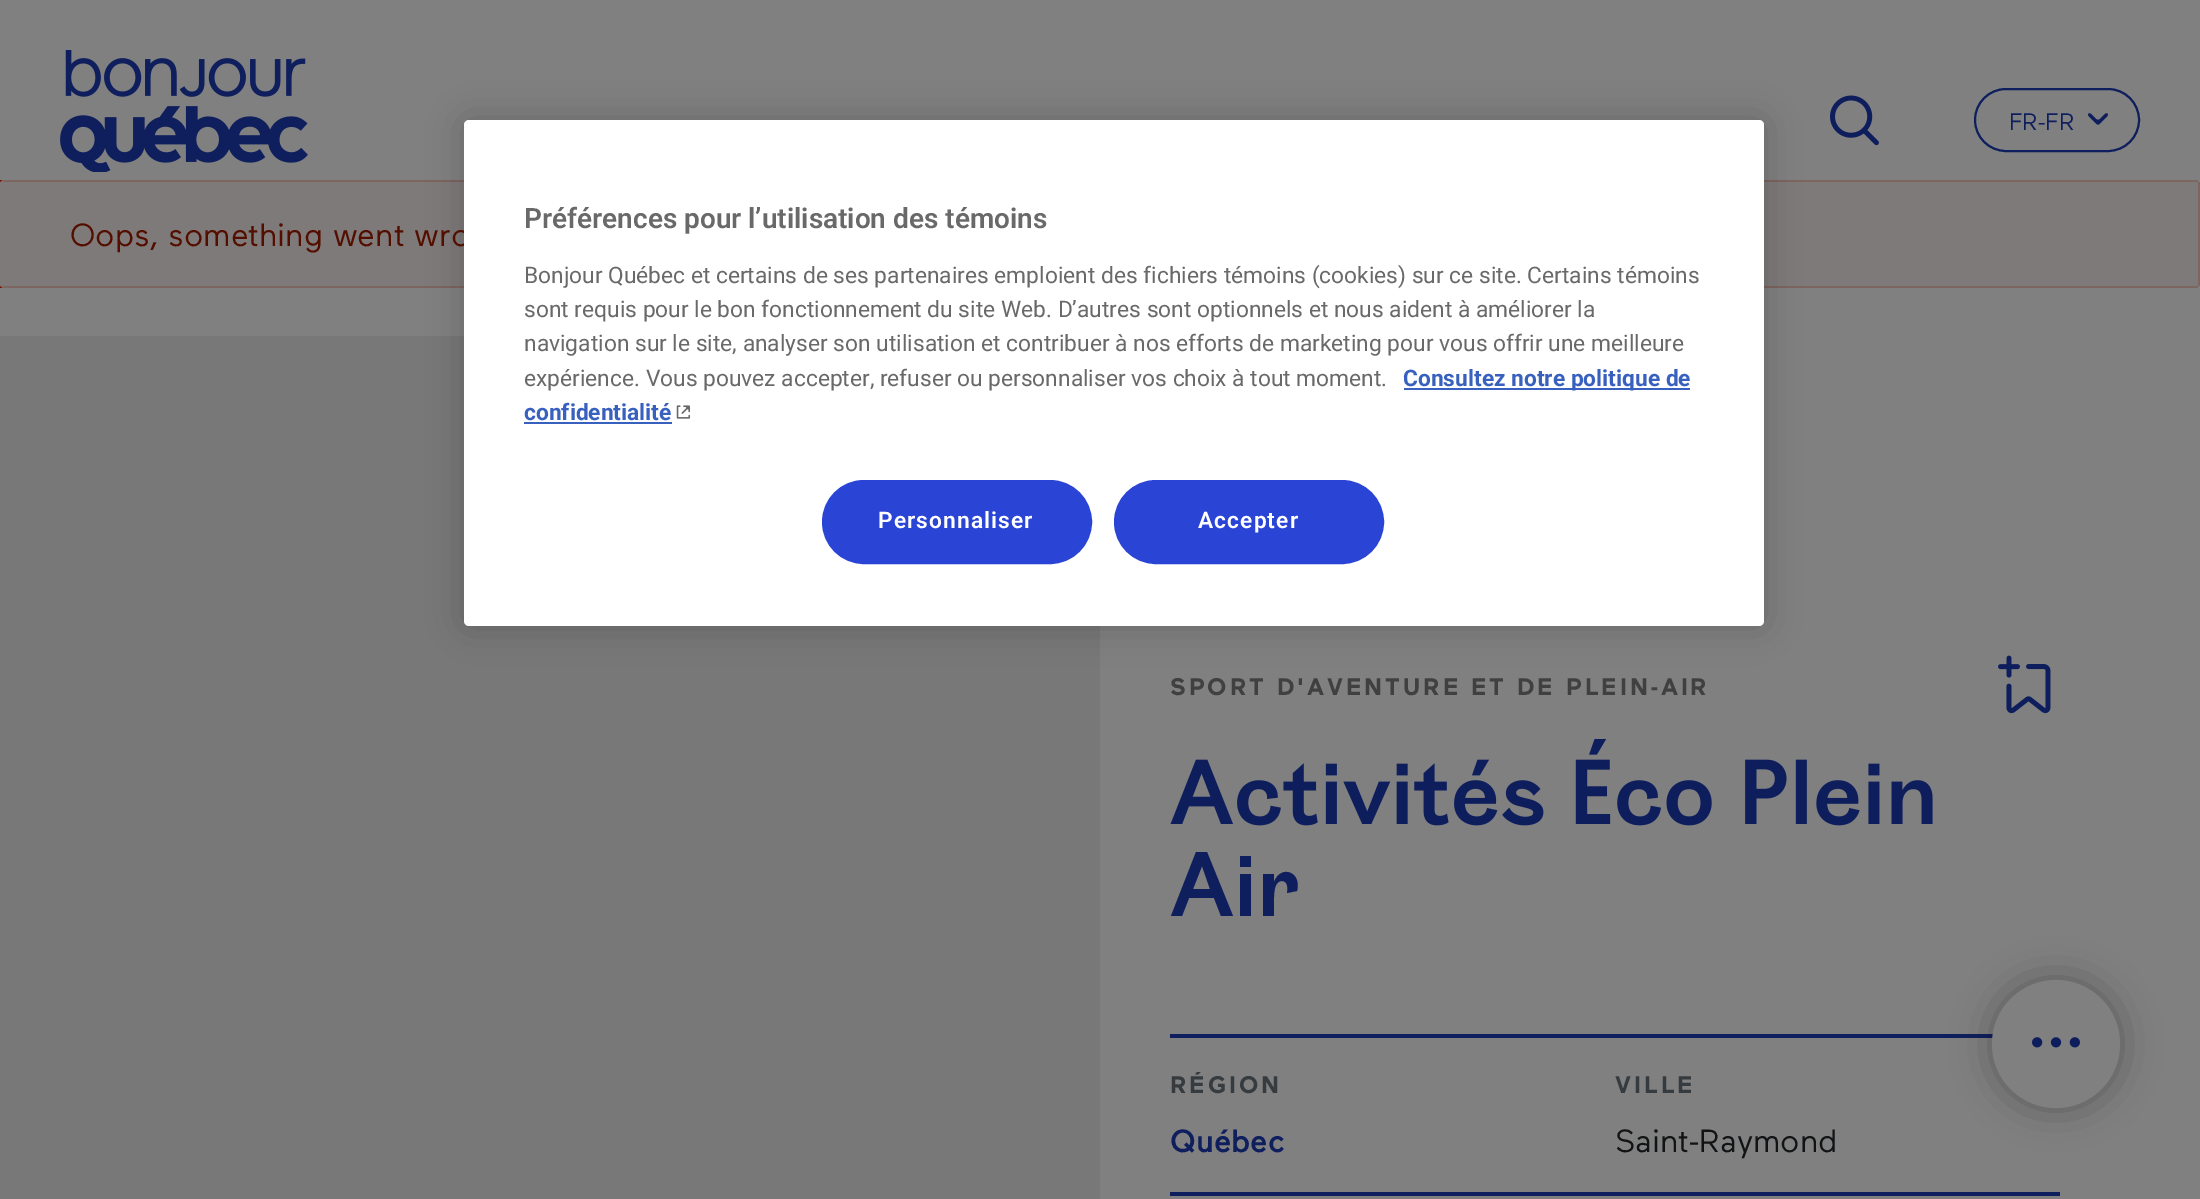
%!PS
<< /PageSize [2200 1199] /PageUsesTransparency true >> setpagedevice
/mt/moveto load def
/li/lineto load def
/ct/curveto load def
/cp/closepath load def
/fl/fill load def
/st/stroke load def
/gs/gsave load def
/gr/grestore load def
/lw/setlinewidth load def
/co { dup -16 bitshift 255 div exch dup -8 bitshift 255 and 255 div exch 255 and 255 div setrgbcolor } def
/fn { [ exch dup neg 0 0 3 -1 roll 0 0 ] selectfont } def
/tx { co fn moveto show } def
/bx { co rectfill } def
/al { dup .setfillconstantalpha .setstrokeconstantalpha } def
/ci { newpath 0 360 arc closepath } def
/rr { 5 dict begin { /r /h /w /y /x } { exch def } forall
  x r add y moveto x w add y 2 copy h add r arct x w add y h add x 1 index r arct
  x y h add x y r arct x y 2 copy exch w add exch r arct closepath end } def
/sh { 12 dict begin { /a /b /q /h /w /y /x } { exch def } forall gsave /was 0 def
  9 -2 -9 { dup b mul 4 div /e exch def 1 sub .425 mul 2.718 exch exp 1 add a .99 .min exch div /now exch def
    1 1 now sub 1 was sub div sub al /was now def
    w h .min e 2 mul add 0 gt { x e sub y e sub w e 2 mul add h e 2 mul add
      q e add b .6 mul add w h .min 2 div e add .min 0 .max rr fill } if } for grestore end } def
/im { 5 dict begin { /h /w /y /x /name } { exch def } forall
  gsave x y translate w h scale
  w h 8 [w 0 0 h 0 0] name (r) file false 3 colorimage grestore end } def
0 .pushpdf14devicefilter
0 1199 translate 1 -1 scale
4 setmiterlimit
0 0 2200 1199 16#808080 bx
(media/1.raw) 60 50 248 122 im
(media/2.raw) 1830 95 49 51 im
16#0F1F5D co
2 lw
1975 89 164 62 31 rr st
(media/3.raw) 2088 113 20 12 im
16#731300 co
-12 180 mt -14 180 -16 182 -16 184 ct -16 284 li -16 286 -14 288 -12 288 ct 4 288 li 2 288 0 286 0 284 ct 0 184 li 0 182 2 180 4 180 ct cp fl
16#7E7A79 co
0 180 2200 108 4 rr fl
2 180 2196 2 16#7D6560 bx
2198 182 2 104 16#7D6560 bx
2 286 2196 2 16#7D6560 bx
0 336 1100 863 16#787878 bx
(media/4.raw) 1998 655 53 59 im
(media/5.raw) 1170 739 763 87 im
16#0F1F5D co
1221 916 mt 1214 898 li 1189 898 li 1182 916 li 1171 916 li 1196 852 li 1207 852 li 1233 916 li cp 1202 866 mt 1193 889 li 1210 889 li cp 1240 856 mt 1251 856 li 1251 867 li 1240 867 li cp 1251 874 mt 1251 916 li 1240 916 li 1240 874 li cp 1282 881 mt 1273 881 1274 897 1274 903 ct 1274 916 li 1263 916 li 1263 874 li 1274 874 li 1274 882 li 1281 864 1302 872 1297 891 ct 1287 893 li 1288 889 1288 881 1282 881 ct cp fl
1170 1034 823 4 16#0F1F5D bx
1170 1192 890 4 16#0F1F5D bx
16#000000 co
1992 980 128 128 64 20 .3 sh
16#808080 co
2056 1044 64 ci fl
(media/6.raw) 2032 1037 48 11 im
16#000000 co
464 120 1300 506 5 18 .2 sh
(FR-FR) 2009 130 /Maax-Regular 24 16#0F1F5D tx
(Oops, something went wro) 70 246 /Maax-Regular 32 16#530E00 tx
/Maax-Bold 24 fn
16#404040 co
1170 695 mt 3 0 (SPORT D'AVENTURE ET DE PLEIN-AIR) ashow
16#363B3F co
1170 1093 mt 3 0 (RÉGION) ashow
(Québec) 1170 1152 /Maax-Medium 32 16#0F1F5D tx
/Maax-Bold 24 fn
16#363B3F co
1615 1093 mt 3 0 (VILLE) ashow
(Saint-Raymond) 1615 1152 /Maax-Regular 32 16#111315 tx
16#FFFFFF co
464 120 1300 506 5 rr fl
(Préférences pour l’utilisation des témoins) 524 228 /Roboto-SemiBold 28 16#696969 tx
(Bonjour Québec et certains de ses partenaires emploient des fichiers témoins \(cookies\) sur ce site. Certains témoins) 524 283 /Roboto-Regular 22.75 16#696969 tx
(sont requis pour le bon fonctionnement du site Web. D’autres sont optionnels et nous aident à améliorer la) 524 317 /Roboto-Regular 22.75 16#696969 tx
(navigation sur le site, analyser son utilisation et contribuer à nos efforts de marketing pour vous offrir une meilleure) 524 351 /Roboto-Regular 22.75 16#696969 tx
1404 388 286 2 16#3860BE bx
(Consultez notre politique de) 1403 386 /Roboto-Bold 22.75 16#3860BE tx
(confidentialité) 524 420 /Roboto-Bold 22.75 16#3860BE tx
524 422 148 2 16#3860BE bx
(media/7.raw) 676 405 15 14 im
(expérience. Vous pouvez accepter, refuser ou personnaliser vos choix à tout moment.) 524 386 /Roboto-Regular 22.75 16#696969 tx
16#2A44D6 co
823 481 268 82 41 rr gs fl gr
st
/Roboto-SemiBold 22.75 fn
16#FFFFFF co
878 528 mt 1.1 0 (Personnaliser) ashow
16#2A44D6 co
1115 481 268 82 41 rr gs fl gr
st
16#FFFFFF co
1198 528 mt 1.1 0 (Accepter) ashow
.poppdf14devicefilter showpage
